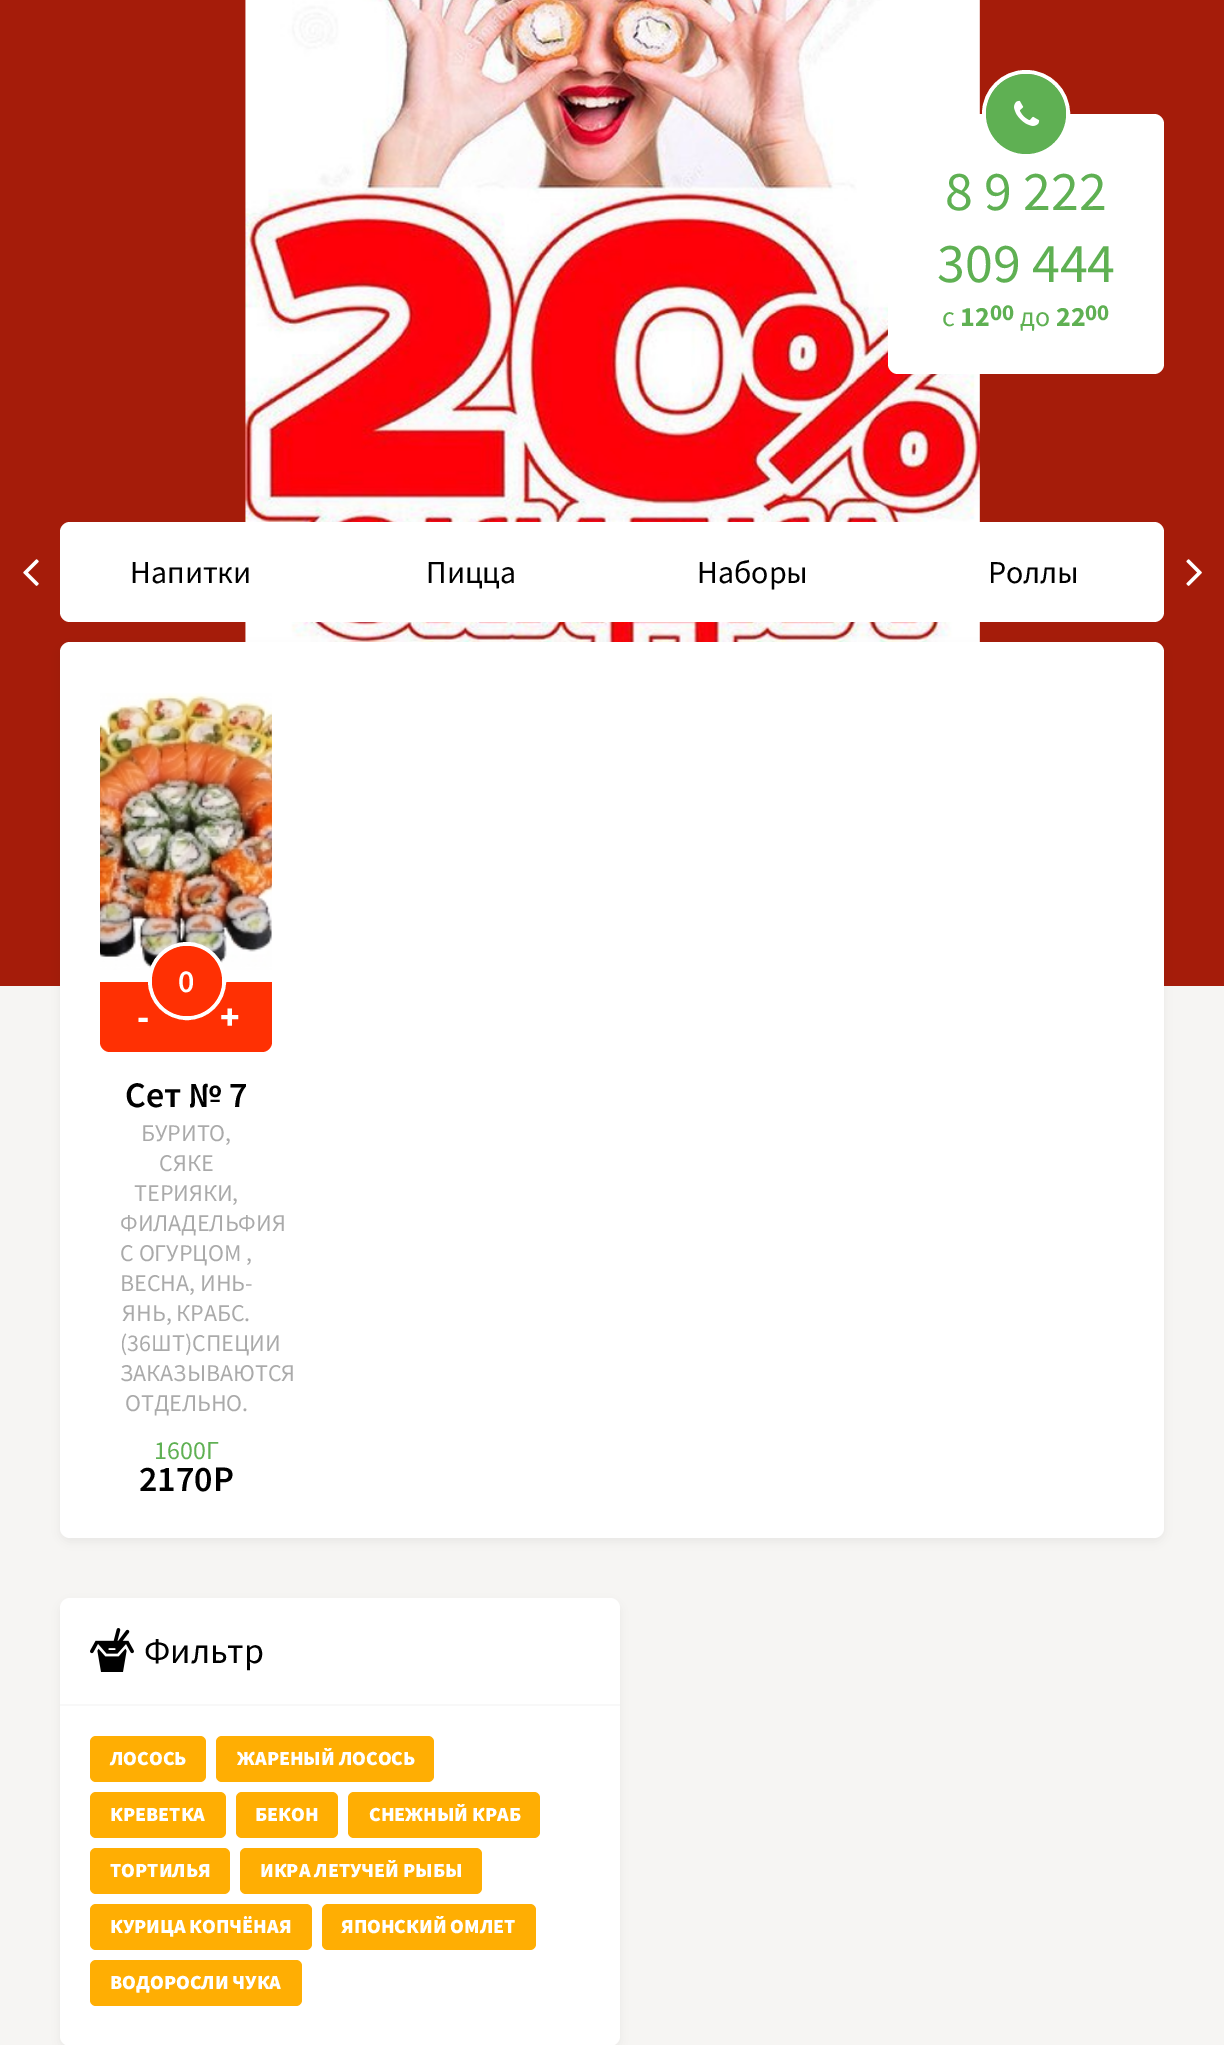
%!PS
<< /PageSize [1224 2045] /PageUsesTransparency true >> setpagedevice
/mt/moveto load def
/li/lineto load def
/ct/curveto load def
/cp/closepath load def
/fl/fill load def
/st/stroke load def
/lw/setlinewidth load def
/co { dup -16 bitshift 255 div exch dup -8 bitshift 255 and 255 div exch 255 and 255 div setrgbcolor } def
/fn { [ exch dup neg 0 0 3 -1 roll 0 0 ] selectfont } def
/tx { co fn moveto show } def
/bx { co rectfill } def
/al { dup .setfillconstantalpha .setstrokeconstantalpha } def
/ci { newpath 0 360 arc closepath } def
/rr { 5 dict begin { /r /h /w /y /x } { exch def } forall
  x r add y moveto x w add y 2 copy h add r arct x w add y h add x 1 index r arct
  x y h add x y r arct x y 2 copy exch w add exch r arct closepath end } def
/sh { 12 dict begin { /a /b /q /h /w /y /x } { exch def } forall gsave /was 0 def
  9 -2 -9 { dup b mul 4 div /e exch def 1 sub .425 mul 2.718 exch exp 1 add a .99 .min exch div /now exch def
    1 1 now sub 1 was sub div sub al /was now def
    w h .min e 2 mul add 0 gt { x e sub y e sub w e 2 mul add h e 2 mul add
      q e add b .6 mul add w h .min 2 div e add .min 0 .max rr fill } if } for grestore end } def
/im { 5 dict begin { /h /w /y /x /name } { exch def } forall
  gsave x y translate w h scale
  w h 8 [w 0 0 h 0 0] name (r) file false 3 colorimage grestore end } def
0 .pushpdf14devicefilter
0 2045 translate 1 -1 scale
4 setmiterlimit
0 0 1224 2045 16#F6F5F3 bx
(media/1.raw) 0 0 1224 986 im
16#FFFFFF co
888 114 276 260 10 rr fl
4 lw
1026 114 42 ci st
16#5FB053 co
1026 114 40 ci fl
(media/2.raw) 1014 100 26 26 im
16#FFFFFF co
60 522 1104 100 10 rr fl
(media/3.raw) 23 559 16 27 im
(media/4.raw) 1186 559 16 27 im
16#000000 co
60 646 1104 896 10 5 .05 sh
16#FFFFFF co
60 642 1104 896 10 rr fl
(media/5.raw) 100 693 172 277 im
16#FF3003 co
100 982 mt 186 982 li 186 1052 li 110 1052 li 104.5 1052 100 1047.5 100 1042 ct cp fl
186 982 mt 272 982 li 272 1042 li 272 1047.5 267.5 1052 262 1052 ct 186 1052 li cp fl
16#FFFFFF co
187 981 37 ci st
16#000000 co
60 1602 560 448 10 5 .05 sh
16#FFFFFF co
60 1598 560 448 10 rr fl
60 1704 560 2 16#F8F8F8 bx
(media/6.raw) 90 1628 44 44 im
16#FFAE03 co
90 1736 116 46 6 rr fl
216 1736 218 46 6 rr fl
90 1792 136 46 6 rr fl
236 1792 102 46 6 rr fl
348 1792 192 46 6 rr fl
90 1848 140 46 6 rr fl
240 1848 242 46 6 rr fl
90 1904 222 46 6 rr fl
322 1904 214 46 6 rr fl
90 1960 212 46 6 rr fl
(8 9 222) 945 210 /SourceSansPro-Regular 56 16#5FB053 tx
(309 444) 937 282 /SourceSansPro-Regular 56 16#5FB053 tx
(c) 942 326 /SourceSansPro-Regular 28 16#5FB053 tx
(12) 960 326 /SourceSansPro-Bold 28 16#5FB053 tx
(00) 990 320 /SourceSansPro-Bold 23 16#5FB053 tx
(до) 1020 326 /SourceSansPro-Regular 28 16#5FB053 tx
(22) 1056 326 /SourceSansPro-Bold 28 16#5FB053 tx
(00) 1085 320 /SourceSansPro-Bold 23 16#5FB053 tx
(Напитки) 130 583 /SourceSansPro-Regular 32 16#000000 tx
(Пицца) 426 583 /SourceSansPro-Regular 32 16#000000 tx
(Наборы) 697 583 /SourceSansPro-Regular 32 16#000000 tx
(Роллы) 988 583 /SourceSansPro-Regular 32 16#000000 tx
(-) 137 1029 /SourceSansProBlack-Black 36 16#FFFFFF tx
(+) 220 1029 /SourceSansProBlack-Black 36 16#FFFFFF tx
16#FF3003 co
187 981 35 ci fl
(0) 178 992 /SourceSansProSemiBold-SemiBold 32 16#FFFFFF tx
(Сет № 7) 125 1107 /SourceSansProSemiBold-SemiBold 36 16#000000 tx
(БУРИТО,) 141 1141 /SourceSansPro-Regular 24 16#AAAAAA tx
(СЯКЕ) 159 1171 /SourceSansPro-Regular 24 16#AAAAAA tx
(ТЕРИЯКИ,) 134 1201 /SourceSansPro-Regular 24 16#AAAAAA tx
(ФИЛАДЕЛЬФИЯ) 120 1231 /SourceSansPro-Regular 24 16#AAAAAA tx
(С ОГУРЦОМ ,) 120 1261 /SourceSansPro-Regular 24 16#AAAAAA tx
(ВЕСНА, ИНЬ-) 120 1291 /SourceSansPro-Regular 24 16#AAAAAA tx
(ЯНЬ, КРАБС.) 122 1321 /SourceSansPro-Regular 24 16#AAAAAA tx
(\(36ШТ\)СПЕЦИИ) 120 1351 /SourceSansPro-Regular 24 16#AAAAAA tx
(ЗАКАЗЫВАЮТСЯ) 120 1381 /SourceSansPro-Regular 24 16#AAAAAA tx
(ОТДЕЛЬНО.) 125 1411 /SourceSansPro-Regular 24 16#AAAAAA tx
(1600Г) 154 1459 /SourceSansPro-Regular 26 16#5FB053 tx
(2170Р) 139 1491 /SourceSansProSemiBold-SemiBold 36 16#000000 tx
(Фильтр) 144 1663 /SourceSansPro-Regular 36 16#000000 tx
(ЛОСОСЬ) 110 1765 /SourceSansProBlack-Black 20 16#FFFFFF tx
(ЖАРЕНЫЙ ЛОСОСЬ) 237 1765 /SourceSansProBlack-Black 20 16#FFFFFF tx
(КРЕВЕТКА) 110 1821 /SourceSansProBlack-Black 20 16#FFFFFF tx
(БЕКОН) 255 1821 /SourceSansProBlack-Black 20 16#FFFFFF tx
(СНЕЖНЫЙ КРАБ) 369 1821 /SourceSansProBlack-Black 20 16#FFFFFF tx
(ТОРТИЛЬЯ) 110 1877 /SourceSansProBlack-Black 20 16#FFFFFF tx
(ИКРА ЛЕТУЧЕЙ РЫБЫ) 260 1877 /SourceSansProBlack-Black 20 16#FFFFFF tx
(КУРИЦА КОПЧЁНАЯ) 110 1933 /SourceSansProBlack-Black 20 16#FFFFFF tx
(ЯПОНСКИЙ ОМЛЕТ) 341 1933 /SourceSansProBlack-Black 20 16#FFFFFF tx
(ВОДОРОСЛИ ЧУКА) 110 1989 /SourceSansProBlack-Black 20 16#FFFFFF tx
.poppdf14devicefilter showpage
